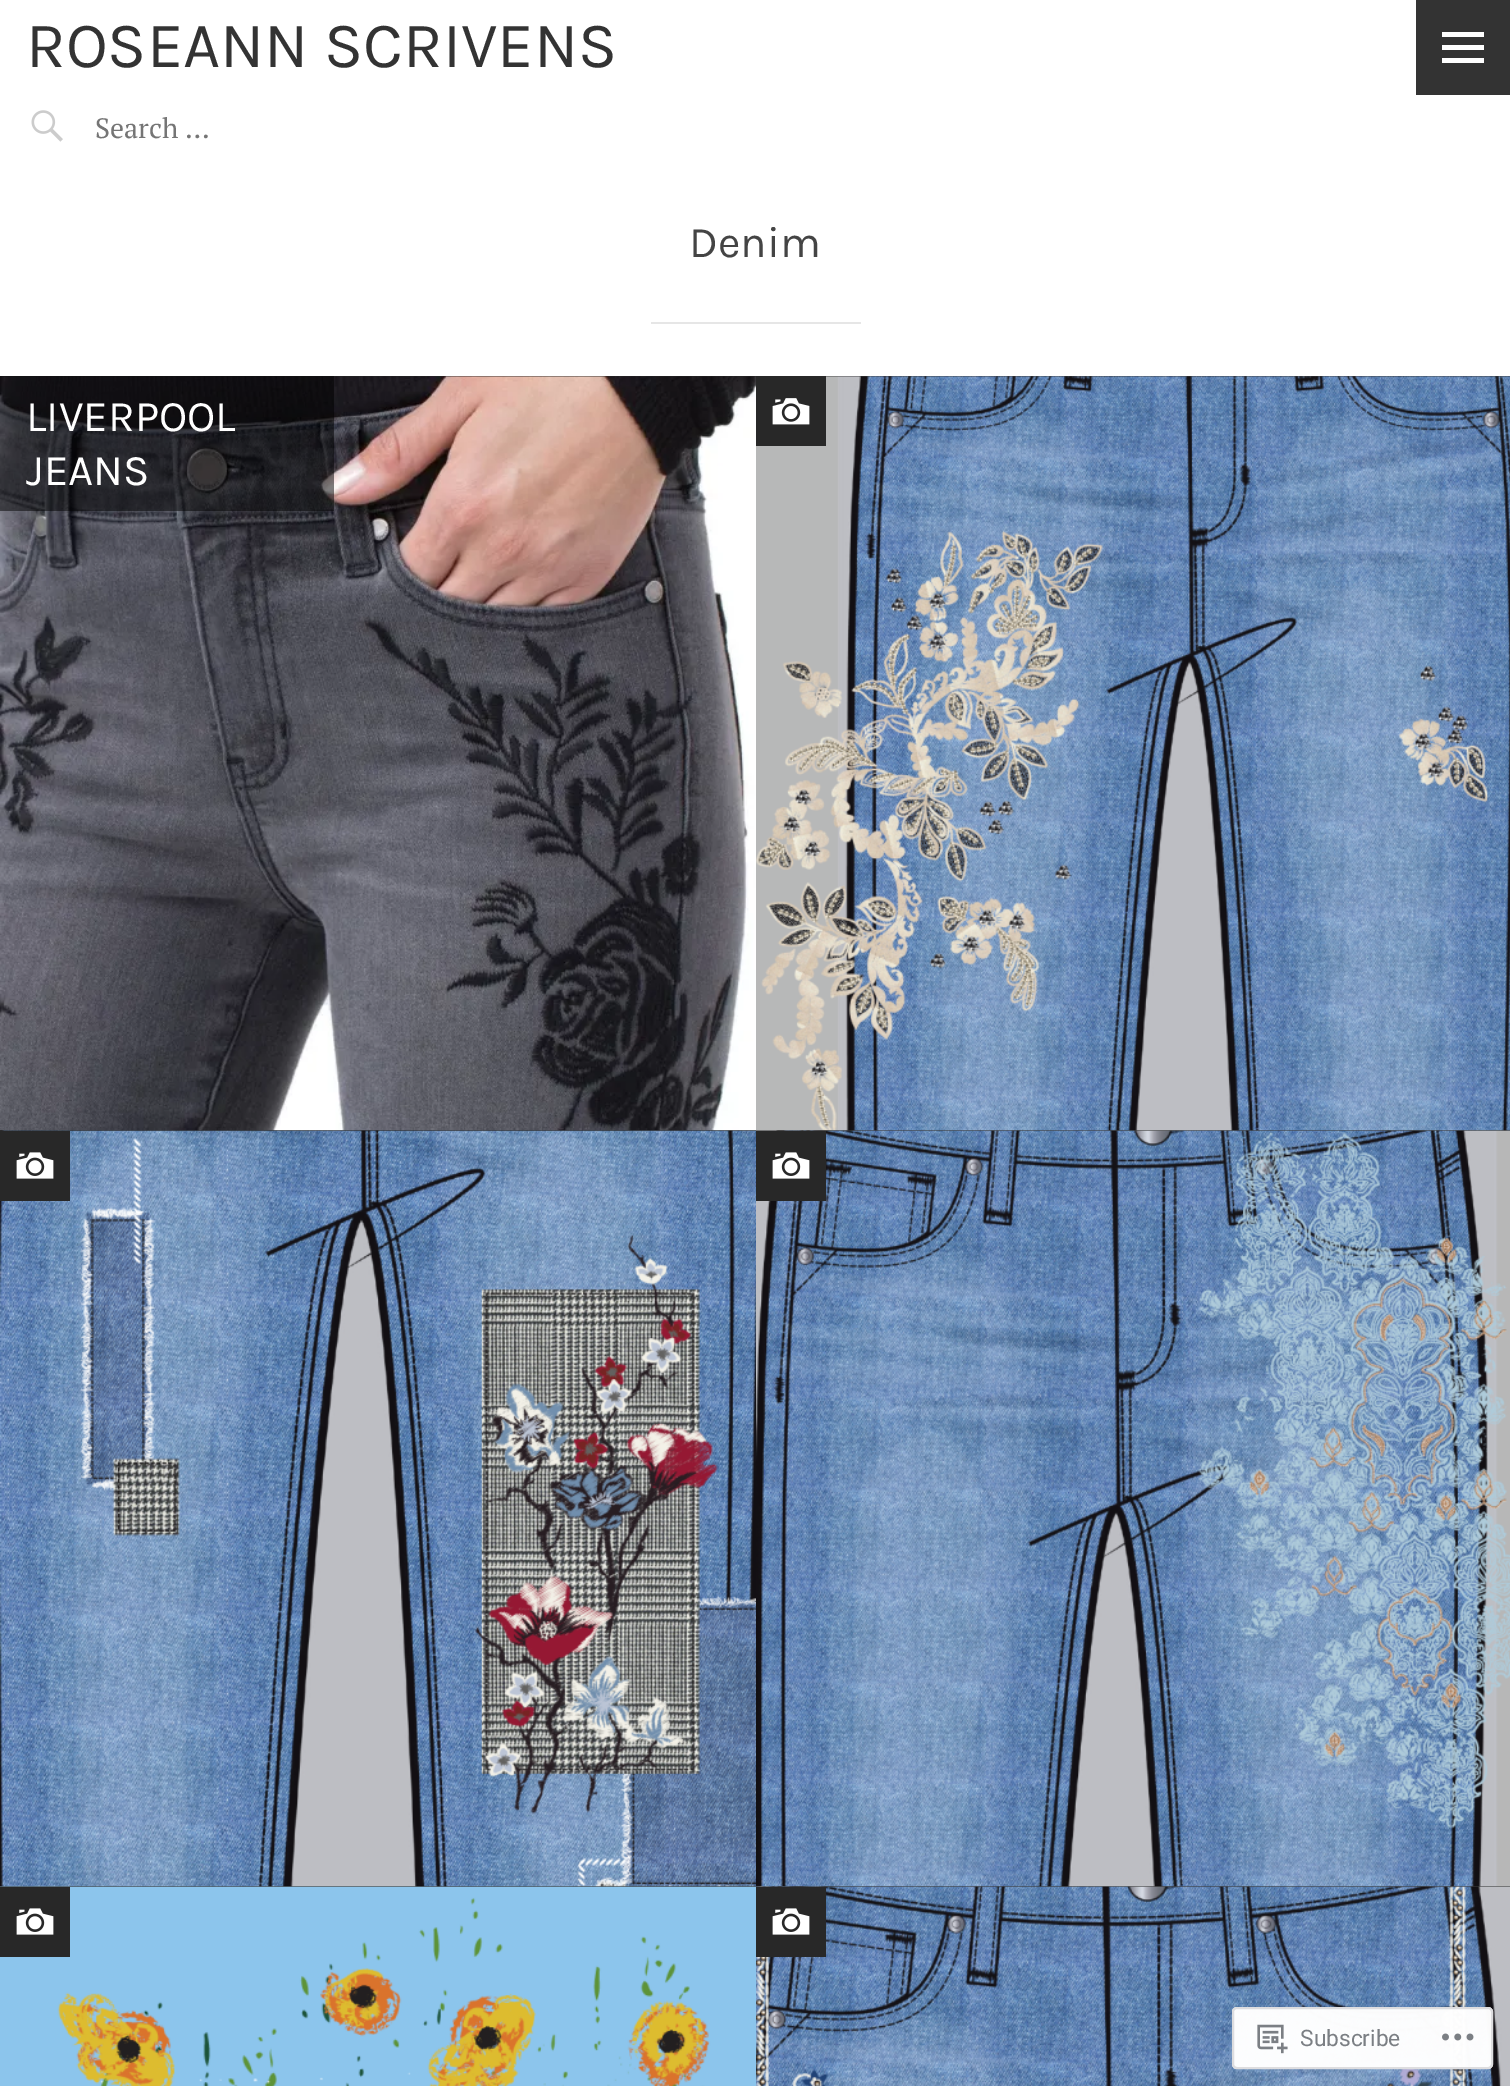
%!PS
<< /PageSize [1510 2086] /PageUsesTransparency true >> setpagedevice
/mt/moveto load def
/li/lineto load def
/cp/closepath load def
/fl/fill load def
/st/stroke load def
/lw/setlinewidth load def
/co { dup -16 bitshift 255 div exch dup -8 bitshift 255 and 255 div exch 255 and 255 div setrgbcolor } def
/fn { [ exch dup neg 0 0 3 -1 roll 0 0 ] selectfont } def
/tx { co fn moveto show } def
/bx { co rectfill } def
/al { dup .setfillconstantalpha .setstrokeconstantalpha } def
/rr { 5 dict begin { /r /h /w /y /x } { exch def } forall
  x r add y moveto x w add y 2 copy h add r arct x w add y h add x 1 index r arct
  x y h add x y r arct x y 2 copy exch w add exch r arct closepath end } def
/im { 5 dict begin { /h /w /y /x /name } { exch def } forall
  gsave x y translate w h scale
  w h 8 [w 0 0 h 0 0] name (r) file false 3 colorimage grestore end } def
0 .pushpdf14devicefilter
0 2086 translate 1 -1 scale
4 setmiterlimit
0 0 1510 2086 16#FFFFFF bx
1416 0 94 95 16#333333 bx
16#FFFFFF co
1442 63 mt 1442 58 li 1484 58 li 1484 63 li cp 1442 32 mt 1484 32 li 1484 37 li 1442 37 li cp 1442 50 mt 1442 45 li 1484 45 li 1484 50 li cp fl
(media/1.raw) 31 110 32 32 im
651 322 210 2 16#E6E6E6 bx
0 376 756 755 16#282828 bx
(media/2.raw) 0 376 756 755 im
0.5 al
0 376 334 135 16#000000 bx
1 al
756 376 754 755 16#3D3D3D bx
(media/3.raw) 756 376 754 755 im
756 376 70 70 16#282828 bx
(media/4.raw) 772 398 38 27 im
0 1886 756 1 16#383838 bx
(media/5.raw) 0 1130 756 757 im
0 1131 70 70 16#282828 bx
(media/6.raw) 16 1152 38 27 im
756 1886 754 1 16#3D3D3D bx
(media/7.raw) 756 1130 754 757 im
756 1131 70 70 16#282828 bx
(media/6.raw) 772 1152 38 27 im
(media/8.raw) 0 1886 756 200 im
0 1887 70 70 16#282828 bx
(media/6.raw) 16 1908 38 27 im
(media/9.raw) 756 1886 754 200 im
756 1887 70 70 16#282828 bx
(media/6.raw) 772 1908 38 27 im
0.98 al
16#FFFFFF co
1232 2007 261 62 5 rr fl
16#DCDCDE co
2 lw
1233 2008 259 60 4 rr st
1 al
(media/10.raw) 1257 2024 31 30 im
(media/11.raw) 1442 2033 32 8 im
(ROSEANN SCRIVENS) 26 67 /Karla-Regular 64.75 16#333333 tx
(Search …) 95 138 /PTSerif-Regular 28 16#757575 tx
(Denim) 689 257 /Karla-Regular 43.75 16#444444 tx
(LIVERPOOL) 26 431 /Karla-Regular 43.75 16#FFFFFF tx
(JEANS) 26 485 /Karla-Regular 43.75 16#FFFFFF tx
(Subscribe) 1300 2046 /Roboto-Regular 22.75 16#7B7F84 tx
.poppdf14devicefilter showpage
